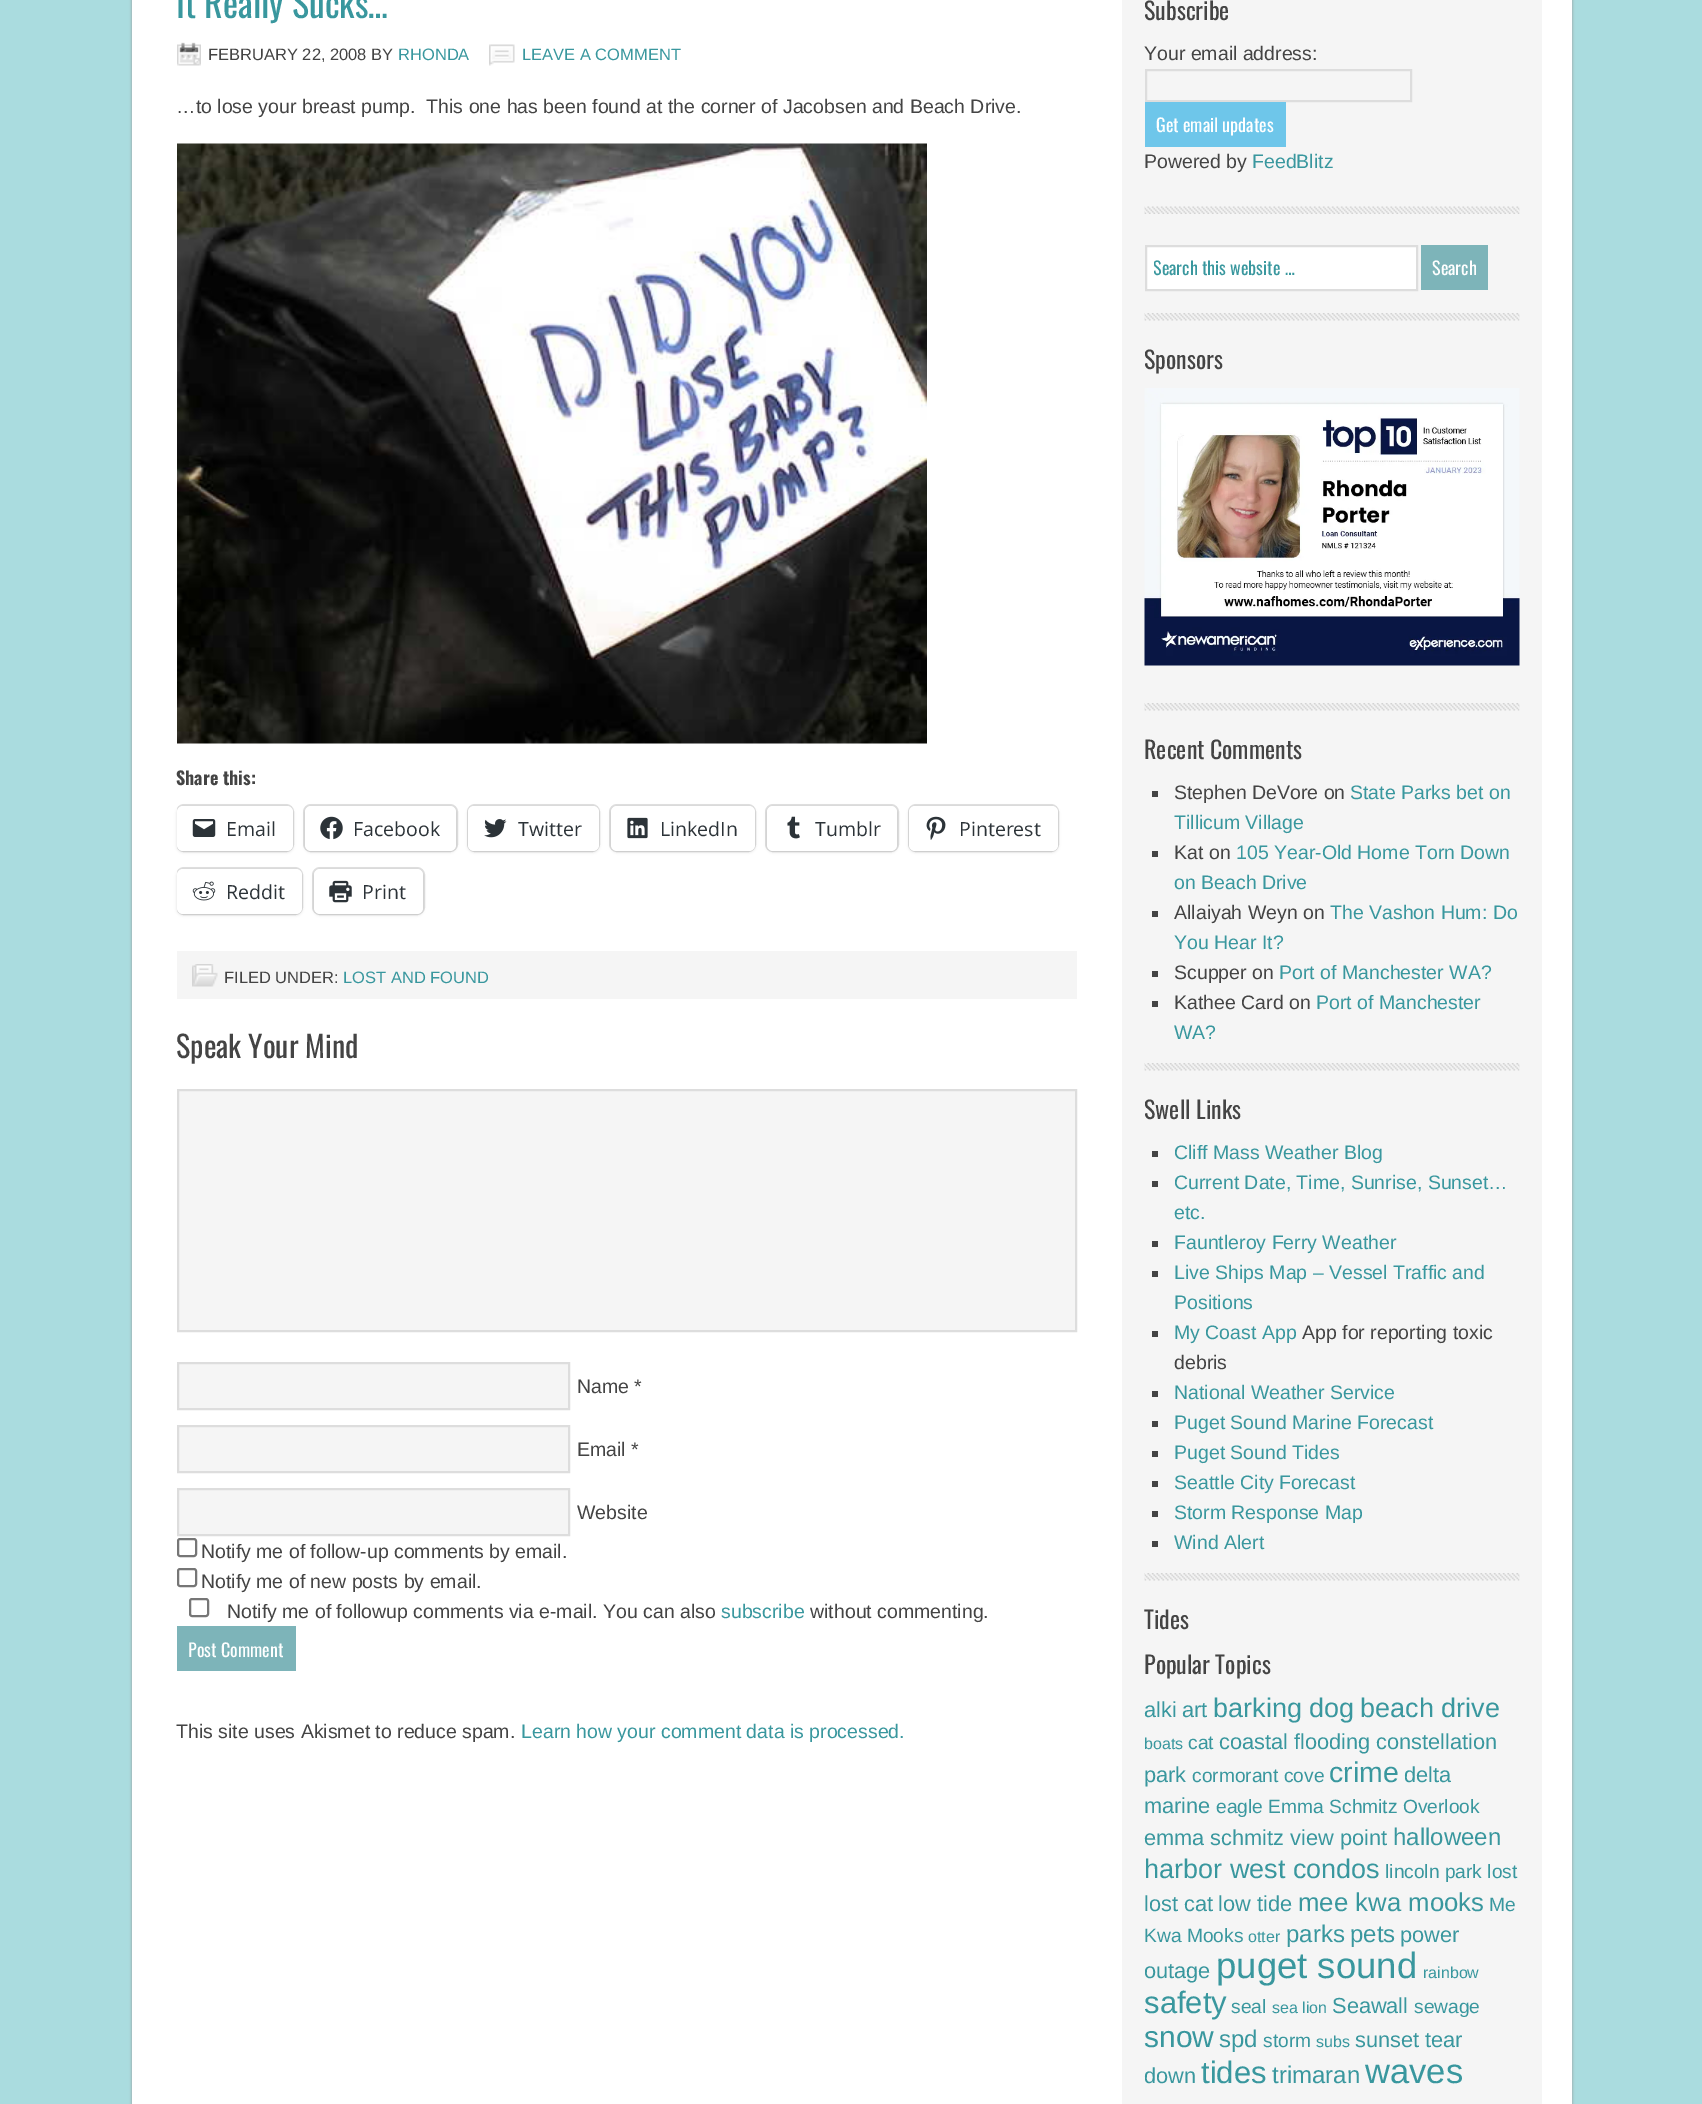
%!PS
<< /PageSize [1702 2104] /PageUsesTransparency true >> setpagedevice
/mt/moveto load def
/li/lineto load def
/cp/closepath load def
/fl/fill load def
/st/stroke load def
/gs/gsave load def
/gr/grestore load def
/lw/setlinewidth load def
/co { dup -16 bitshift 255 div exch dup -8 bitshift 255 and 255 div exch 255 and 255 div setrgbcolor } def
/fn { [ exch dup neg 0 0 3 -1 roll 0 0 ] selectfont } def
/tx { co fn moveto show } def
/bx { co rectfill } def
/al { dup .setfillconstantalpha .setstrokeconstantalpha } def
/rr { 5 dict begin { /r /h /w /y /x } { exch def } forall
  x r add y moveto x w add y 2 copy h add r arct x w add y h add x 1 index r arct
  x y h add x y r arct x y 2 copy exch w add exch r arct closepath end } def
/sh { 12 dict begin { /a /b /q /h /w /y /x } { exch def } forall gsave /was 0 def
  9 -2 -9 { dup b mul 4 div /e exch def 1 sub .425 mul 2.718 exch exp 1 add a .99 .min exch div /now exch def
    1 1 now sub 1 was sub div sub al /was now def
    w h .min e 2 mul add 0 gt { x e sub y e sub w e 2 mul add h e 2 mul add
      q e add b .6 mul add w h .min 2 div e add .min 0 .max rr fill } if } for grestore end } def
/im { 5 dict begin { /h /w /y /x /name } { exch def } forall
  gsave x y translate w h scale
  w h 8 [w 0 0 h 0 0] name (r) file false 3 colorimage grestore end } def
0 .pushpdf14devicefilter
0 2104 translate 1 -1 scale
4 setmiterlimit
0 0 1702 2104 16#AADCDF bx
16#999999 co
132 -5 1440 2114 0 1.5 1 sh
132 0 1440 2104 16#FFFFFF bx
(media/1.raw) 177 42 24 24 im
(media/2.raw) 489 44 26 22 im
(media/3.raw) 177 143 750 601 im
gs
177 0 900 999 rectclip
16#E0E0E0 co
2 lw
177 805 116 46 7 rr st
gr
16#000000 co
177 807 116 45 6 1.5 .12 sh
16#FFFFFF co
177 806 116 45 6 rr fl
(media/4.raw) 192 819 24 18 im
16#E0E0E0 co
2 lw
304 805 153 46 7 rr st
16#000000 co
305 807 151 45 6 1.5 .12 sh
16#FFFFFF co
305 806 151 45 6 rr fl
(media/5.raw) 320 816 23 24 im
16#E0E0E0 co
468 805 131 46 7 rr st
16#000000 co
468 807 131 45 6 1.5 .12 sh
16#FFFFFF co
468 806 131 45 6 rr fl
(media/6.raw) 484 819 23 19 im
16#E0E0E0 co
610 805 145 46 7 rr st
16#000000 co
611 807 144 45 6 1.5 .12 sh
16#FFFFFF co
611 806 144 45 6 rr fl
(media/7.raw) 627 817 21 22 im
16#E0E0E0 co
766 805 132 46 7 rr st
16#000000 co
767 807 130 45 6 1.5 .12 sh
16#FFFFFF co
767 806 130 45 6 rr fl
(media/8.raw) 787 816 13 23 im
16#E0E0E0 co
909 805 149 46 7 rr st
16#000000 co
909 807 149 45 6 1.5 .12 sh
16#FFFFFF co
909 806 149 45 6 rr fl
(media/9.raw) 926 816 20 24 im
gs
177 0 900 999 rectclip
16#E0E0E0 co
177 868 125 46 7 rr st
gr
16#000000 co
177 870 125 45 6 1.5 .12 sh
16#FFFFFF co
177 869 125 45 6 rr fl
(media/10.raw) 192 881 24 20 im
16#E0E0E0 co
313 868 111 46 7 rr st
16#000000 co
314 870 109 45 6 1.5 .12 sh
16#FFFFFF co
314 869 109 45 6 rr fl
(media/11.raw) 329 880 23 23 im
177 951 900 48 16#F5F5F5 bx
(media/12.raw) 192 964 26 23 im
178 1090 mt 1076 1090 li 1076 1331 li 178 1331 li cp gs fl gr
16#DDDDDD co
st
16#F5F5F5 co
178 1363 mt 569 1363 li 569 1409 li 178 1409 li cp gs fl gr
16#DDDDDD co
st
16#F5F5F5 co
178 1426 mt 569 1426 li 569 1472 li 178 1472 li cp gs fl gr
16#DDDDDD co
st
16#F5F5F5 co
178 1489 mt 569 1489 li 569 1535 li 178 1535 li cp gs fl gr
16#DDDDDD co
st
16#767676 co
178 1539 18 17 2 rr st
178 1569 18 17 2 rr st
190 1599 18 17 2 rr st
177 1626 119 45 16#7DB4B9 bx
1122 0 420 2104 16#F5F5F5 bx
(media/13.raw) 1144 206 376 8 im
16#DDDDDD co
1146 70 265 31 rectstroke
1145 102 141 45 16#6EC6EA bx
(media/14.raw) 1144 313 376 8 im
16#FFFFFF co
1146 246 mt 1417 246 li 1417 290 li 1146 290 li cp gs fl gr
16#DDDDDD co
st
1421 245 67 45 16#7DB4B9 bx
(media/14.raw) 1144 703 376 8 im
(media/15.raw) 1144 388 376 278 im
(media/14.raw) 1144 1063 376 8 im
1152 791 6 6 16#444444 bx
1152 851 6 6 16#444444 bx
1152 911 6 6 16#444444 bx
1152 971 6 6 16#444444 bx
1152 1001 6 6 16#444444 bx
(media/14.raw) 1144 1573 376 8 im
1152 1151 6 6 16#444444 bx
1152 1181 6 6 16#444444 bx
1152 1241 6 6 16#444444 bx
1152 1271 6 6 16#444444 bx
1152 1331 6 6 16#444444 bx
1152 1391 6 6 16#444444 bx
1152 1421 6 6 16#444444 bx
1152 1451 6 6 16#444444 bx
1152 1481 6 6 16#444444 bx
1152 1511 6 6 16#444444 bx
1152 1541 6 6 16#444444 bx
(It Really Sucks…) 176 18 /Oswald-Regular 36 16#39979E tx
(FEBRUARY 22, 2008 BY) 208 60 /LiberationSans-Regular 16.5 16#444444 tx
(RHONDA) 398 60 /LiberationSans-Regular 16.5 16#39979E tx
(LEAVE A COMMENT) 522 60 /LiberationSans-Regular 16.5 16#39979E tx
(…to lose your breast pump.  This one has been found at the corner of Jacobsen and Beach Drive.) 176 113 /LiberationSans-Regular 19.5 16#444444 tx
(Share this:) 176 785 /Oswald-Bold 18 16#444444 tx
(Email) 226 836 /OpenSans-Regular 19.5 16#2C3338 tx
(Facebook) 353 836 /OpenSans-Regular 19.5 16#2C3338 tx
(Twitter) 518 836 /OpenSans-Regular 19.5 16#2C3338 tx
(LinkedIn) 660 836 /OpenSans-Regular 19.5 16#2C3338 tx
(Tumblr) 815 836 /OpenSans-Regular 19.5 16#2C3338 tx
(Pinterest) 959 836 /OpenSans-Regular 19.5 16#2C3338 tx
(Reddit) 226 899 /OpenSans-Regular 19.5 16#2C3338 tx
(Print) 362 899 /OpenSans-Regular 19.5 16#2C3338 tx
(FILED UNDER:) 224 983 /LiberationSans-Regular 16.5 16#444444 tx
(LOST AND FOUND) 343 983 /LiberationSans-Regular 16.5 16#39979E tx
(Speak Your Mind) 176 1058 /Oswald-Regular 30 16#444444 tx
(Name *) 577 1393 /LiberationSans-Regular 19.5 16#444444 tx
(Email *) 577 1456 /LiberationSans-Regular 19.5 16#444444 tx
(Website) 577 1519 /LiberationSans-Regular 19.5 16#444444 tx
(Notify me of follow-up comments by email.) 201 1558 /LiberationSans-Regular 19.5 16#444444 tx
(Notify me of new posts by email.) 201 1588 /LiberationSans-Regular 19.5 16#444444 tx
(Notify me of followup comments via e-mail. You can also) 227 1618 /LiberationSans-Regular 19.5 16#444444 tx
(subscribe) 721 1618 /LiberationSans-Regular 19.5 16#39979E tx
(without commenting.) 810 1618 /LiberationSans-Regular 19.5 16#444444 tx
(Post Comment) 188 1657 /Oswald-Regular 18 16#FFFFFF tx
(This site uses Akismet to reduce spam.) 176 1738 /LiberationSans-Regular 19.5 16#444444 tx
(Learn how your comment data is processed.) 521 1738 /LiberationSans-Regular 19.5 16#39979E tx
(Subscribe) 1144 20 /Oswald-Regular 24 16#444444 tx
(Your email address:) 1144 60 /LiberationSans-Regular 19.5 16#444444 tx
(Get email updates) 1156 132 /Oswald-Regular 18 16#FFFFFF tx
(Powered by) 1144 168 /LiberationSans-Regular 19.5 16#444444 tx
(FeedBlitz) 1252 168 /LiberationSans-Regular 19.5 16#39979E tx
gs
1154 252 262 30 rectclip
(Search this website …) 1153 275 /Oswald-Regular 18 16#39979E tx
gr
(Search) 1432 275 /Oswald-Regular 18 16#FFFFFF tx
(Sponsors) 1144 369 /Oswald-Regular 24 16#444444 tx
(Recent Comments) 1144 759 /Oswald-Regular 24 16#444444 tx
(Stephen DeVore on) 1174 799 /LiberationSans-Regular 19.5 16#444444 tx
(State Parks bet on) 1350 799 /LiberationSans-Regular 19.5 16#39979E tx
(Tillicum Village) 1174 829 /LiberationSans-Regular 19.5 16#39979E tx
(Kat on) 1174 859 /LiberationSans-Regular 19.5 16#444444 tx
(105 Year-Old Home Torn Down) 1236 859 /LiberationSans-Regular 19.5 16#39979E tx
(on Beach Drive) 1174 889 /LiberationSans-Regular 19.5 16#39979E tx
(Allaiyah Weyn on) 1174 919 /LiberationSans-Regular 19.5 16#444444 tx
(The Vashon Hum: Do) 1330 919 /LiberationSans-Regular 19.5 16#39979E tx
(You Hear It?) 1174 949 /LiberationSans-Regular 19.5 16#39979E tx
(Scupper on) 1174 979 /LiberationSans-Regular 19.5 16#444444 tx
(Port of Manchester WA?) 1279 979 /LiberationSans-Regular 19.5 16#39979E tx
(Kathee Card on) 1174 1009 /LiberationSans-Regular 19.5 16#444444 tx
(Port of Manchester) 1316 1009 /LiberationSans-Regular 19.5 16#39979E tx
(WA?) 1174 1039 /LiberationSans-Regular 19.5 16#39979E tx
(Swell Links) 1144 1119 /Oswald-Regular 24 16#444444 tx
(Cliff Mass Weather Blog) 1174 1159 /LiberationSans-Regular 19.5 16#39979E tx
(Current Date, Time, Sunrise, Sunset…) 1174 1189 /LiberationSans-Regular 19.5 16#39979E tx
(etc.) 1174 1219 /LiberationSans-Regular 19.5 16#39979E tx
(Fauntleroy Ferry Weather) 1174 1249 /LiberationSans-Regular 19.5 16#39979E tx
(Live Ships Map – Vessel Traffic and) 1174 1279 /LiberationSans-Regular 19.5 16#39979E tx
(Positions) 1174 1309 /LiberationSans-Regular 19.5 16#39979E tx
(My Coast App) 1174 1339 /LiberationSans-Regular 19.5 16#39979E tx
(App for reporting toxic) 1302 1339 /LiberationSans-Regular 19.5 16#444444 tx
(debris) 1174 1369 /LiberationSans-Regular 19.5 16#444444 tx
(National Weather Service) 1174 1399 /LiberationSans-Regular 19.5 16#39979E tx
(Puget Sound Marine Forecast) 1174 1429 /LiberationSans-Regular 19.5 16#39979E tx
(Puget Sound Tides) 1174 1459 /LiberationSans-Regular 19.5 16#39979E tx
(Seattle City Forecast) 1174 1489 /LiberationSans-Regular 19.5 16#39979E tx
(Storm Response Map) 1174 1519 /LiberationSans-Regular 19.5 16#39979E tx
(Wind Alert) 1174 1549 /LiberationSans-Regular 19.5 16#39979E tx
(Tides) 1144 1629 /Oswald-Regular 24 16#444444 tx
(Popular Topics) 1144 1674 /Oswald-Regular 24 16#444444 tx
(alki) 1144 1717 /LiberationSans-Regular 21.75 16#39979E tx
(art) 1182 1717 /LiberationSans-Regular 21.75 16#39979E tx
(barking dog) 1213 1717 /LiberationSans-Regular 27 16#39979E tx
(beach drive) 1360 1717 /LiberationSans-Regular 27 16#39979E tx
(boats) 1144 1749 /LiberationSans-Regular 16 16#39979E tx
(cat) 1188 1749 /LiberationSans-Regular 19.2 16#39979E tx
(coastal flooding) 1219 1749 /LiberationSans-Regular 21.75 16#39979E tx
(constellation) 1376 1749 /LiberationSans-Regular 21.75 16#39979E tx
(park) 1144 1782 /LiberationSans-Regular 21.75 16#39979E tx
(cormorant cove) 1192 1782 /LiberationSans-Regular 19.2 16#39979E tx
(crime) 1329 1782 /LiberationSans-Regular 28.5 16#39979E tx
(delta) 1404 1782 /LiberationSans-Regular 21.75 16#39979E tx
(marine) 1144 1813 /LiberationSans-Regular 21.75 16#39979E tx
(eagle Emma Schmitz Overlook) 1216 1813 /LiberationSans-Regular 19.2 16#39979E tx
(emma schmitz view point) 1144 1845 /LiberationSans-Regular 21.75 16#39979E tx
(halloween) 1393 1845 /LiberationSans-Regular 24 16#39979E tx
(harbor west condos) 1144 1878 /LiberationSans-Regular 27 16#39979E tx
(lincoln park lost) 1385 1878 /LiberationSans-Regular 19.2 16#39979E tx
(lost cat) 1144 1911 /LiberationSans-Regular 21.75 16#39979E tx
(low tide) 1218 1911 /LiberationSans-Regular 21.75 16#39979E tx
(mee kwa mooks) 1298 1911 /LiberationSans-Regular 25.75 16#39979E tx
(Me) 1489 1911 /LiberationSans-Regular 19.2 16#39979E tx
(Kwa Mooks) 1144 1942 /LiberationSans-Regular 19.2 16#39979E tx
(otter) 1248 1942 /LiberationSans-Regular 16 16#39979E tx
(parks) 1286 1942 /LiberationSans-Regular 24 16#39979E tx
(pets) 1350 1942 /LiberationSans-Regular 24 16#39979E tx
(power) 1400 1942 /LiberationSans-Regular 21.75 16#39979E tx
(outage) 1144 1978 /LiberationSans-Regular 21.75 16#39979E tx
(puget sound) 1216 1978 /LiberationSans-Regular 36.5 16#39979E tx
(rainbow) 1423 1978 /LiberationSans-Regular 16 16#39979E tx
(safety) 1144 2013 /LiberationSans-Regular 31 16#39979E tx
(seal) 1231 2013 /LiberationSans-Regular 19.2 16#39979E tx
(sea lion) 1272 2013 /LiberationSans-Regular 16 16#39979E tx
(Seawall) 1332 2013 /LiberationSans-Regular 21.75 16#39979E tx
(sewage) 1414 2013 /LiberationSans-Regular 19.2 16#39979E tx
(snow) 1144 2047 /LiberationSans-Regular 30 16#39979E tx
(spd) 1219 2047 /LiberationSans-Regular 24 16#39979E tx
(storm) 1263 2047 /LiberationSans-Regular 19.2 16#39979E tx
(subs) 1316 2047 /LiberationSans-Regular 16 16#39979E tx
(sunset) 1355 2047 /LiberationSans-Regular 21.75 16#39979E tx
(tear) 1425 2047 /LiberationSans-Regular 21.75 16#39979E tx
(down) 1144 2083 /LiberationSans-Regular 21.75 16#39979E tx
(tides) 1201 2083 /LiberationSans-Regular 31 16#39979E tx
(trimaran) 1272 2083 /LiberationSans-Regular 24 16#39979E tx
(waves) 1365 2083 /LiberationSans-Regular 34.5 16#39979E tx
.poppdf14devicefilter showpage
